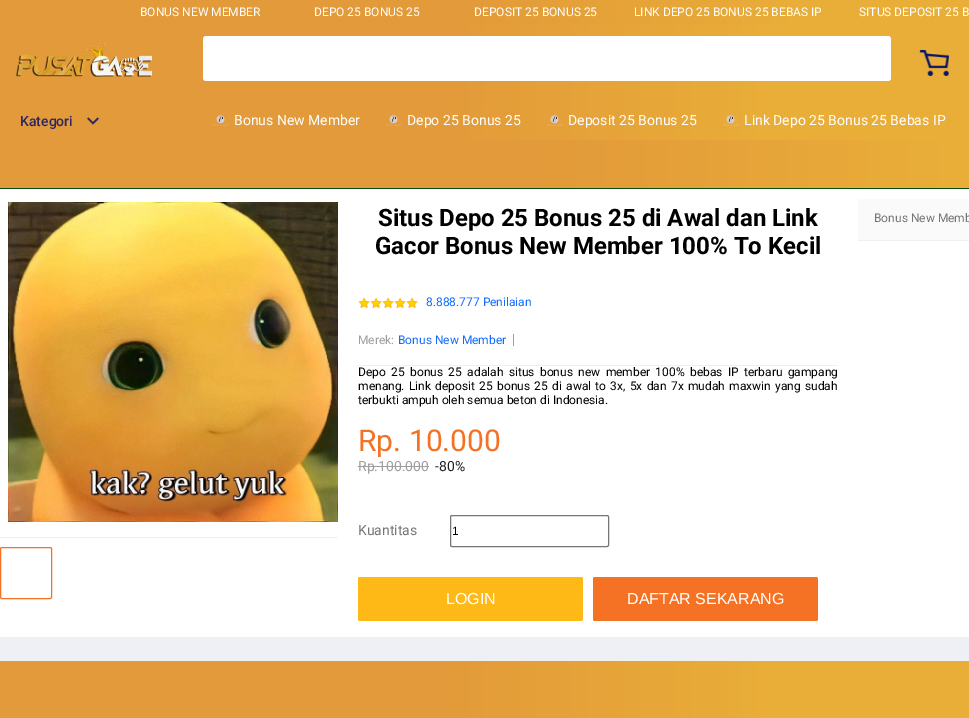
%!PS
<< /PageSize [969 718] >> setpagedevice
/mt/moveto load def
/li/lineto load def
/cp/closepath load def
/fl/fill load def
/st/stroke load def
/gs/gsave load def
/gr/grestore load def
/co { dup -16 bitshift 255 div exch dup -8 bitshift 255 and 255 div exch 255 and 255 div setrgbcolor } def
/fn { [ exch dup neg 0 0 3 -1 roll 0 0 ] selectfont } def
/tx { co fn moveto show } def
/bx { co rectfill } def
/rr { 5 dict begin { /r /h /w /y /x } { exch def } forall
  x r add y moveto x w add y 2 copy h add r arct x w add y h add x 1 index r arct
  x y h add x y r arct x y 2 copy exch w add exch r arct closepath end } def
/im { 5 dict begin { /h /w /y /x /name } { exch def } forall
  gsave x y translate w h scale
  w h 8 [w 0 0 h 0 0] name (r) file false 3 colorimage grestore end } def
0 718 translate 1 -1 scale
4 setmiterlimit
0 0 969 718 16#FFFFFF bx
gs 0 661 mt 969 661 li 969 718 li 0 718 li cp clip newpath
<< /ShadingType 2 /ColorSpace /DeviceRGB /Coords [969 359 0 359] /Extend [true true] /Function << /FunctionType 3 /Domain [0 1] /Functions [<< /FunctionType 2 /Domain [0 1] /C0 [.914 .682 .22] /C1 [.914 .682 .22] /N 1 >> << /FunctionType 2 /Domain [0 1] /C0 [.914 .682 .22] /C1 [.89 .604 .227] /N 1 >> << /FunctionType 2 /Domain [0 1] /C0 [.89 .604 .227] /C1 [.89 .604 .227] /N 1 >>] /Bounds [.2 .55] /Encode [0 1 0 1 0 1] >> >> shfill gr
gs 0 0 mt 969 0 li 969 25 li 0 25 li cp clip newpath
<< /ShadingType 2 /ColorSpace /DeviceRGB /Coords [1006 12 0 13] /Extend [true true] /Function << /FunctionType 3 /Domain [0 1] /Functions [<< /FunctionType 2 /Domain [0 1] /C0 [.914 .682 .22] /C1 [.914 .682 .22] /N 1 >> << /FunctionType 2 /Domain [0 1] /C0 [.914 .682 .22] /C1 [.89 .604 .227] /N 1 >> << /FunctionType 2 /Domain [0 1] /C0 [.89 .604 .227] /C1 [.89 .604 .227] /N 1 >>] /Bounds [.2 .55] /Encode [0 1 0 1 0 1] >> >> shfill gr
gs 0 25 mt 969 25 li 969 100 li 0 100 li cp clip newpath
<< /ShadingType 2 /ColorSpace /DeviceRGB /Coords [969 62 0 63] /Extend [true true] /Function << /FunctionType 3 /Domain [0 1] /Functions [<< /FunctionType 2 /Domain [0 1] /C0 [.914 .682 .22] /C1 [.914 .682 .22] /N 1 >> << /FunctionType 2 /Domain [0 1] /C0 [.914 .682 .22] /C1 [.89 .604 .227] /N 1 >> << /FunctionType 2 /Domain [0 1] /C0 [.89 .604 .227] /C1 [.89 .604 .227] /N 1 >>] /Bounds [.2 .55] /Encode [0 1 0 1 0 1] >> >> shfill gr
(media/1.raw) 16 42 136 35 im
203 36 688 45 3 rr fl
(media/2.raw) 919 50 30 26 im
gs 0 100 mt 969 100 li 969 140 li 0 140 li cp clip newpath
<< /ShadingType 2 /ColorSpace /DeviceRGB /Coords [969 120 0 120] /Extend [true true] /Function << /FunctionType 3 /Domain [0 1] /Functions [<< /FunctionType 2 /Domain [0 1] /C0 [.914 .682 .22] /C1 [.914 .682 .22] /N 1 >> << /FunctionType 2 /Domain [0 1] /C0 [.914 .682 .22] /C1 [.89 .604 .227] /N 1 >> << /FunctionType 2 /Domain [0 1] /C0 [.89 .604 .227] /C1 [.89 .604 .227] /N 1 >>] /Bounds [.2 .55] /Encode [0 1 0 1 0 1] >> >> shfill gr
(media/3.raw) 87 117 12 8 im
(media/4.raw) 213 115 16 11 im
(media/5.raw) 386 115 16 11 im
(media/6.raw) 547 115 16 11 im
(media/7.raw) 723 115 16 11 im
gs 0 140 mt 969 140 li 969 188 li 0 188 li cp clip newpath
<< /ShadingType 2 /ColorSpace /DeviceRGB /Coords [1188 164 0 165] /Extend [true true] /Function << /FunctionType 3 /Domain [0 1] /Functions [<< /FunctionType 2 /Domain [0 1] /C0 [.914 .682 .22] /C1 [.914 .682 .22] /N 1 >> << /FunctionType 2 /Domain [0 1] /C0 [.914 .682 .22] /C1 [.89 .604 .227] /N 1 >> << /FunctionType 2 /Domain [0 1] /C0 [.89 .604 .227] /C1 [.89 .604 .227] /N 1 >>] /Bounds [.2 .55] /Encode [0 1 0 1 0 1] >> >> shfill gr
0 188 969 1 16#084D10 bx
0 637 969 24 16#EFF0F5 bx
0 537 338 1 16#EFF0F5 bx
(media/8.raw) 8 202 330 320 im
16#F57224 co
.5 547.5 51 51 1.5 rr st
(media/9.raw) 358 297 12 12 im
(media/9.raw) 370 297 12 12 im
(media/9.raw) 382 297 12 12 im
(media/9.raw) 394 297 12 12 im
(media/9.raw) 406 297 12 12 im
358 365 480 1 16#EFF0F5 bx
513 334 1 12 16#9E9E9E bx
358 466 71 1 16#9E9E9E bx
16#767676 co
450.5 515.5 158 31 1.5 rr st
16#FFB916 co
358 577 225 44 2 rr fl
16#F57224 co
593 577 225 44 2 rr fl
858 199 111 41 16#FAFAFA bx
858 240 111 1 16#EFF0F5 bx
(BONUS NEW MEMBER) 140 16 /Roboto-Regular 12 16#FFFFFF tx
(DEPO 25 BONUS 25) 314 16 /Roboto-Regular 12 16#FFFFFF tx
(DEPOSIT 25 BONUS 25) 474 16 /Roboto-Regular 12 16#FFFFFF tx
(LINK DEPO 25 BONUS 25 BEBAS IP) 634 16 /Roboto-Regular 12 16#FFFFFF tx
(SITUS DEPOSIT 25 B) 859 16 /Roboto-Regular 12 16#FFFFFF tx
(Kategori) 20 126 /Roboto-Medium 14 16#2F2765 tx
(Bonus New Member) 234 125 /Roboto-Regular 14 16#FFFFFF tx
(Depo 25 Bonus 25) 407 125 /Roboto-Regular 14 16#FFFFFF tx
(Deposit 25 Bonus 25) 568 125 /Roboto-Regular 14 16#FFFFFF tx
(Link Depo 25 Bonus 25 Bebas IP) 744 125 /Roboto-Regular 14 16#FFFFFF tx
(Situs Depo 25 Bonus 25 di Awal dan Link) 378 226 /Roboto-Bold 24 16#000000 tx
(Gacor Bonus New Member 100% To Kecil) 375 254 /Roboto-Bold 24 16#000000 tx
(8.888.777 Penilaian) 426 306 /Roboto-Regular 12 16#136CFF tx
(Merek:) 358 344 /Roboto-Regular 12 16#9E9E9E tx
(Bonus New Member) 398 344 /Roboto-Regular 12 16#136CFF tx
16#000000 co
358 376 mt 2.4 0 32 (Depo 25 bonus 25 adalah situs bonus new member 100% bebas IP terbaru gampang) widthshow
358 390 mt 1.3 0 32 (menang. Link deposit 25 bonus 25 di awal to 3x, 5x dan 7x mudah maxwin yang sudah) widthshow
(terbukti ampuh oleh semua beton di Indonesia.) 358 404 /Roboto-Regular 12 16#000000 tx
(Rp. 10.000) 358 451 /Roboto-Regular 30 16#F57224 tx
(Rp.100.000) 358 471 /Roboto-Regular 14 16#9E9E9E tx
(-80%) 435 471 /Roboto-Regular 14 16#212121 tx
(Kuantitas) 358 535 /Roboto-Regular 14 16#757575 tx
(1) 452 535 /LiberationSans-Regular 12 16#000000 tx
(LOGIN) 446 604 /LiberationSans-Regular 16 16#FFFFFF tx
(DAFTAR SEKARANG) 627 604 /LiberationSans-Regular 16 16#FFFFFF tx
(Bonus New Memb) 874 222 /Roboto-Regular 12 16#757575 tx
showpage
